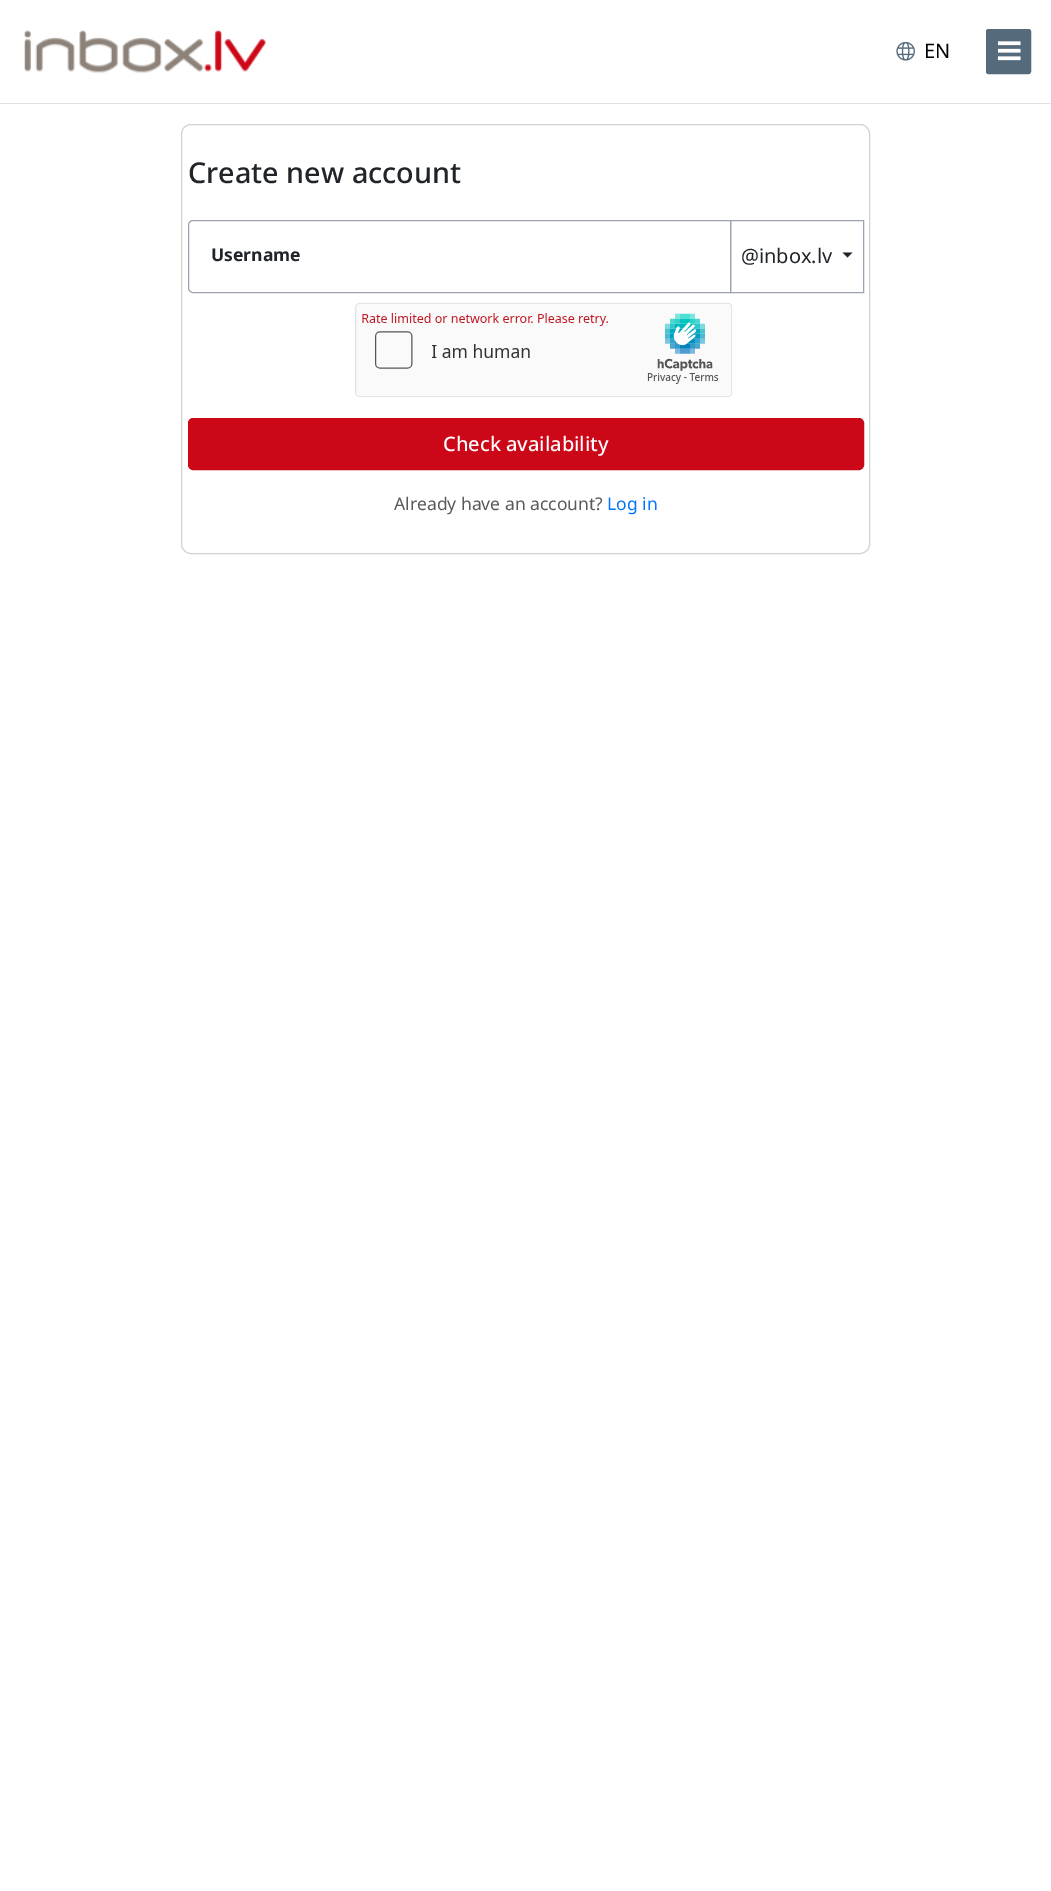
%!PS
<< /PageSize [1051 1891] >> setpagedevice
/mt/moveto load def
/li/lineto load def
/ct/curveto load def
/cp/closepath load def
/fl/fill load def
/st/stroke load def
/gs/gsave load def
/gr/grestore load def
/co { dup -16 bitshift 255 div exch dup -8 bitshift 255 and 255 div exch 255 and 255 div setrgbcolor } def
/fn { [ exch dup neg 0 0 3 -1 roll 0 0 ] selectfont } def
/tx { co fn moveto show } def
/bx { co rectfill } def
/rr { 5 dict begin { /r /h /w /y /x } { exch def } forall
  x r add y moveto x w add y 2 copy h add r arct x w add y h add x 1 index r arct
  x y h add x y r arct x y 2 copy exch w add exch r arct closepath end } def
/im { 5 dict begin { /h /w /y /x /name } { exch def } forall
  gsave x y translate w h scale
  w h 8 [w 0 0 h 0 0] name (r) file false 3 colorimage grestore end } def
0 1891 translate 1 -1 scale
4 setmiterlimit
0 0 1051 1891 16#FFFFFF bx
0 103 1051 1 16#E2E2E2 bx
(media/1.raw) 24 30 242 43 im
(media/2.raw) 896 41 19 20 im
16#556B7C co
986.5 29.5 44 44 2 rr gs fl gr
st
(media/3.raw) 997 41 24 20 im
16#D2D2D2 co
181.5 124.5 688 429 9.5 rr st
16#9EA3B1 co
193 220.5 mt 730.5 220.5 li 730.5 292.5 li 193 292.5 li 190.5 292.5 188.5 290.5 188.5 288 ct 188.5 225 li 188.5 222.5 190.5 220.5 193 220.5 ct cp st
730.5 220.5 133 72 rectstroke
16#212529 co
842.5 252.5 mt 852.5 252.5 li 847.5 257.5 li cp fl
(media/4.raw) 355 302 378 96 im
16#CC0717 co
188.5 418.5 675 51 4.5 rr gs fl gr
st
(EN) 924 58 /NotoSans-Regular 20 16#000000 tx
(Create new account) 188 183 /NotoSans-Medium 28.75 16#212529 tx
(Username) 211 261 /NotoSans-Bold 17.5 16#212529 tx
(@inbox.lv) 741 263 /NotoSans-Regular 20 16#212529 tx
(Check availability) 443 451 /NotoSans-Medium 20 16#FFFFFF tx
(Already have an account?) 394 510 /NotoSans-Regular 17.5 16#5A5A5A tx
(Log in) 607 510 /NotoSans-Regular 17.5 16#0175FF tx
showpage
